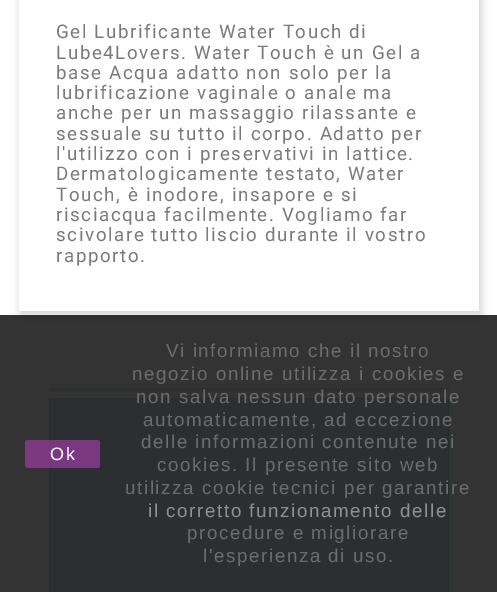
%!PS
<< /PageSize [497 592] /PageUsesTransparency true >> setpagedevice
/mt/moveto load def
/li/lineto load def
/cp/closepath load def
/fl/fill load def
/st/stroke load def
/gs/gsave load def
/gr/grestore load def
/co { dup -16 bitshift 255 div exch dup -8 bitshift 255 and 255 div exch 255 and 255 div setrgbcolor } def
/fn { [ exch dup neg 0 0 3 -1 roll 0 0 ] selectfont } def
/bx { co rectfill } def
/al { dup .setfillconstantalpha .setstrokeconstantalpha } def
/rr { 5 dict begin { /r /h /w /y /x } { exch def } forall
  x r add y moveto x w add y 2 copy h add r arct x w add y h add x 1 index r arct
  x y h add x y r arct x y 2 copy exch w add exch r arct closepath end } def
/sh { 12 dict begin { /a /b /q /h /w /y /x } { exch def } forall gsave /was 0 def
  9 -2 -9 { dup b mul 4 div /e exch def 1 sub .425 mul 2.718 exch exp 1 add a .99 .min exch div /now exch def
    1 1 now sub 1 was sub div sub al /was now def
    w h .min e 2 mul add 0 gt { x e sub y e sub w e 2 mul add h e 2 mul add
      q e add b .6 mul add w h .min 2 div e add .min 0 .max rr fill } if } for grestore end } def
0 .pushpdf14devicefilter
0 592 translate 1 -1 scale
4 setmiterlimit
0 0 497 592 16#FFFFFF bx
16#000000 co
21 -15 460 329 0 5 .2 sh
19 0 460 311 16#FFFFFF bx
49 388 400 4 16#EBEBEB bx
16#D9EDF7 co
49.5 398.5 mt 448.5 398.5 li 448.5 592.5 li 49.5 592.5 li cp gs fl gr
16#BCDFF1 co
st
0.8 al
0 315 497 277 16#000000 bx
16#8E3A95 co
25 440 75 28 2.5 rr fl
/Roboto-Regular 18.75 fn
1 al
16#7A7A7A co
56 38 mt 1.6 0 (Gel Lubrificante Water Touch di) ashow
56 59 mt 1.6 0 (Lube4Lovers. Water Touch è un Gel a) ashow
56 79 mt 1.6 0 (base Acqua adatto non solo per la) ashow
56 99 mt 1.6 0 (lubrificazione vaginale o anale ma) ashow
56 119 mt 1.6 0 (anche per un massaggio rilassante e) ashow
56 140 mt 1.6 0 (sessuale su tutto il corpo. Adatto per) ashow
56 160 mt 1.6 0 (l'utilizzo con i preservativi in lattice.) ashow
56 180 mt 1.6 0 (Dermatologicamente testato, Water) ashow
56 201 mt 1.6 0 (Touch, è inodore, insapore e si) ashow
56 221 mt 1.6 0 (risciacqua facilmente. Vogliamo far) ashow
56 241 mt 1.6 0 (scivolare tutto liscio durante il vostro) ashow
56 262 mt 1.6 0 (rapporto.) ashow
/LiberationSans-Regular 18 fn
16#F7FBFD co
50 460 mt 1.6 0 (Ok) ashow
/LiberationSans-Regular 18.75 fn
16#6C6C6C co
166 357 mt 1.6 0 (Vi informiamo che il nostro) ashow
132 380 mt 1.6 0 (negozio online utilizza i cookies e) ashow
136 403 mt 1.6 0 (non salva nessun dato personale) ashow
143 426 mt 1.6 0 (automaticamente, ad eccezione) ashow
141 448 mt 1.6 0 (delle informazioni contenute nei) ashow
157 471 mt 1.6 0 (cookies. Il presente sito web) ashow
125 494 mt 1.6 0 (utilizza cookie tecnici per garantire) ashow
16#8D9193 co
148 517 mt 1.6 0 (il corretto funzionamento delle) ashow
16#6C6C6C co
187 539 mt 1.6 0 (procedure e migliorare) ashow
203 562 mt 1.6 0 (l'esperienza di uso.) ashow
.poppdf14devicefilter showpage
